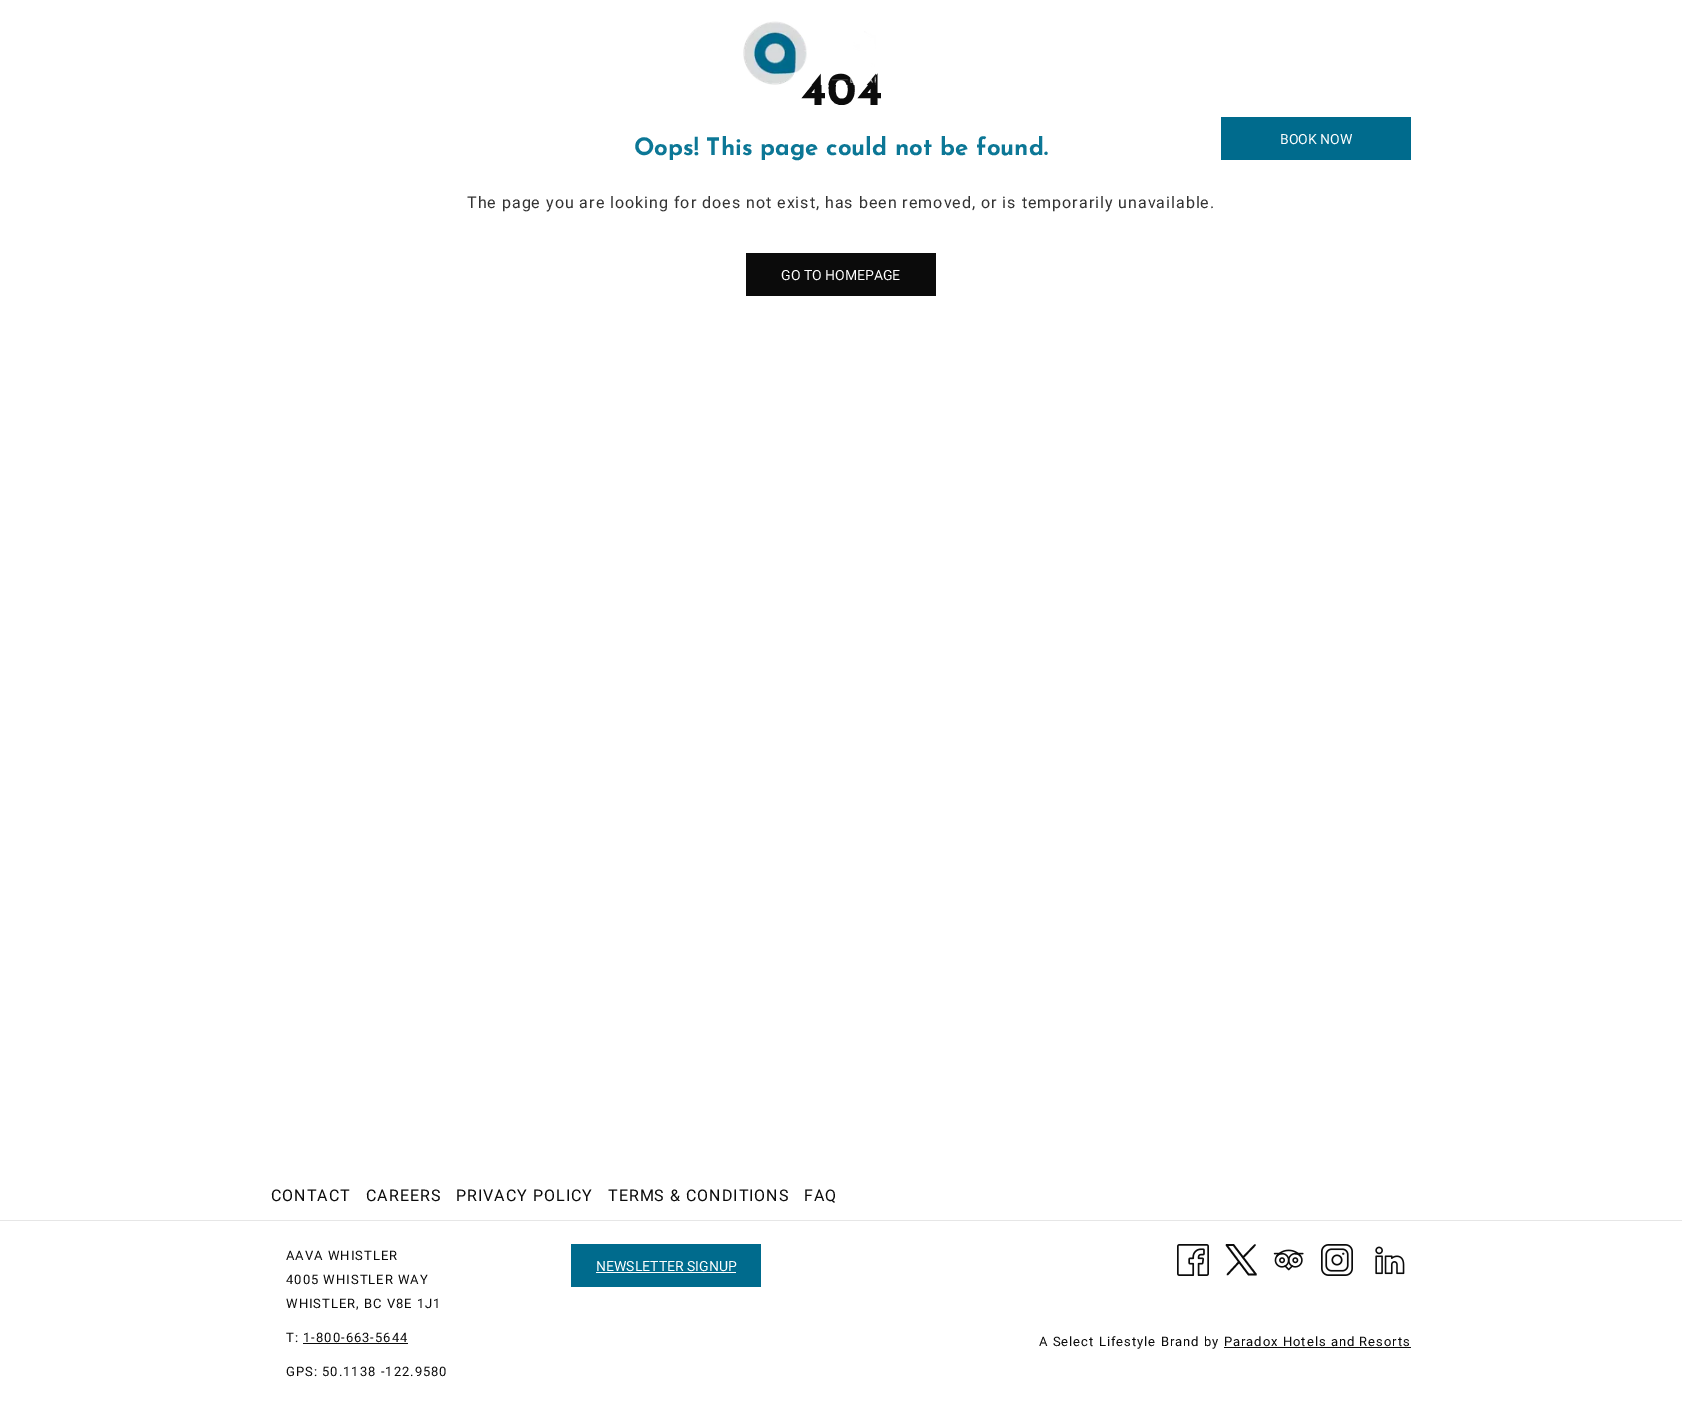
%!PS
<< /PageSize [1682 1428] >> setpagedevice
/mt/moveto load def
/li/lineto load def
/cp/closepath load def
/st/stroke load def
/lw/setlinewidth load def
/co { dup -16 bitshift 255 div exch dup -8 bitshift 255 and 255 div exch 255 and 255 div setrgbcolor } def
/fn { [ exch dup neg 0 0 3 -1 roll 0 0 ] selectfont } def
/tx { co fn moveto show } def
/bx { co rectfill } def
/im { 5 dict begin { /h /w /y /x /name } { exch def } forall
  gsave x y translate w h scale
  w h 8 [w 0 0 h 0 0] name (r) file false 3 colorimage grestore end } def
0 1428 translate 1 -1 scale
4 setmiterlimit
0 0 1682 1428 16#FFFFFF bx
746 253 190 43 16#0B0B0B bx
1221 117 190 43 16#006B8D bx
0 1220 1682 1 16#E6E6E6 bx
303 1343 105 1 16#0B0B0B bx
571 1244 190 43 16#006B8D bx
596 1272 140 1 16#FFFFFF bx
(media/2.raw) 1177 1244 32 32 im
16#0B0B0B co
1.7 lw
1 setlinecap
1 setlinejoin
1248.5 1274.5 mt 1226.5 1245 li 1233.5 1245 li 1256 1274.5 li cp 1255 1245 mt 1243 1257.5 li 1227.5 1274.5 mt 1239 1262 li st
(media/3.raw) 1273 1249 31 22 im
(media/4.raw) 1321 1244 32 32 im
(media/5.raw) 1375 1246 30 29 im
1224 1347 187 1 16#0B0B0B bx
(404) 801 105 /JosefinSans-Bold 47 16#0B0B0B tx
(Oops! This page could not be found.) 634 155 /JosefinSans-Bold 24 16#0C7796 tx
/Roboto-Regular 16 fn
16#333333 co
467 208 mt 1 0 (The page you are looking for does not exist, has been removed, or is temporarily unavailable.) ashow
(GO TO HOMEPAGE) 781 280 /Roboto-Regular 14 16#FFFFFF tx
(media/1.raw) 743 21 133 64 im
(BOOK NOW) 1280 144 /Roboto-Regular 14 16#FFFFFF tx
/Roboto-Regular 16 fn
16#0B0B0B co
271 1201 mt 1 0 (CONTACT) ashow
366 1201 mt 1 0 (CAREERS) ashow
456 1201 mt 1 0 (PRIVACY POLICY) ashow
608 1201 mt 1 0 (TERMS & CONDITIONS) ashow
804 1201 mt 1 0 (FAQ) ashow
/Roboto-Regular 13 fn
286 1260 mt 1 0 (AAVA WHISTLER) ashow
286 1284 mt 1 0 (4005 WHISTLER WAY) ashow
286 1308 mt 1 0 (WHISTLER, BC V8E 1J1) ashow
286 1342 mt 1 0 (T: 1-800-663-5644) ashow
286 1376 mt 1 0 (GPS: 50.1138 -122.9580) ashow
(NEWSLETTER SIGNUP) 596 1271 /Roboto-Regular 14 16#FFFFFF tx
/Roboto-Regular 13 fn
16#0B0B0B co
1039 1346 mt 1 0 (A Select Lifestyle Brand by Paradox Hotels and Resorts) ashow
showpage
